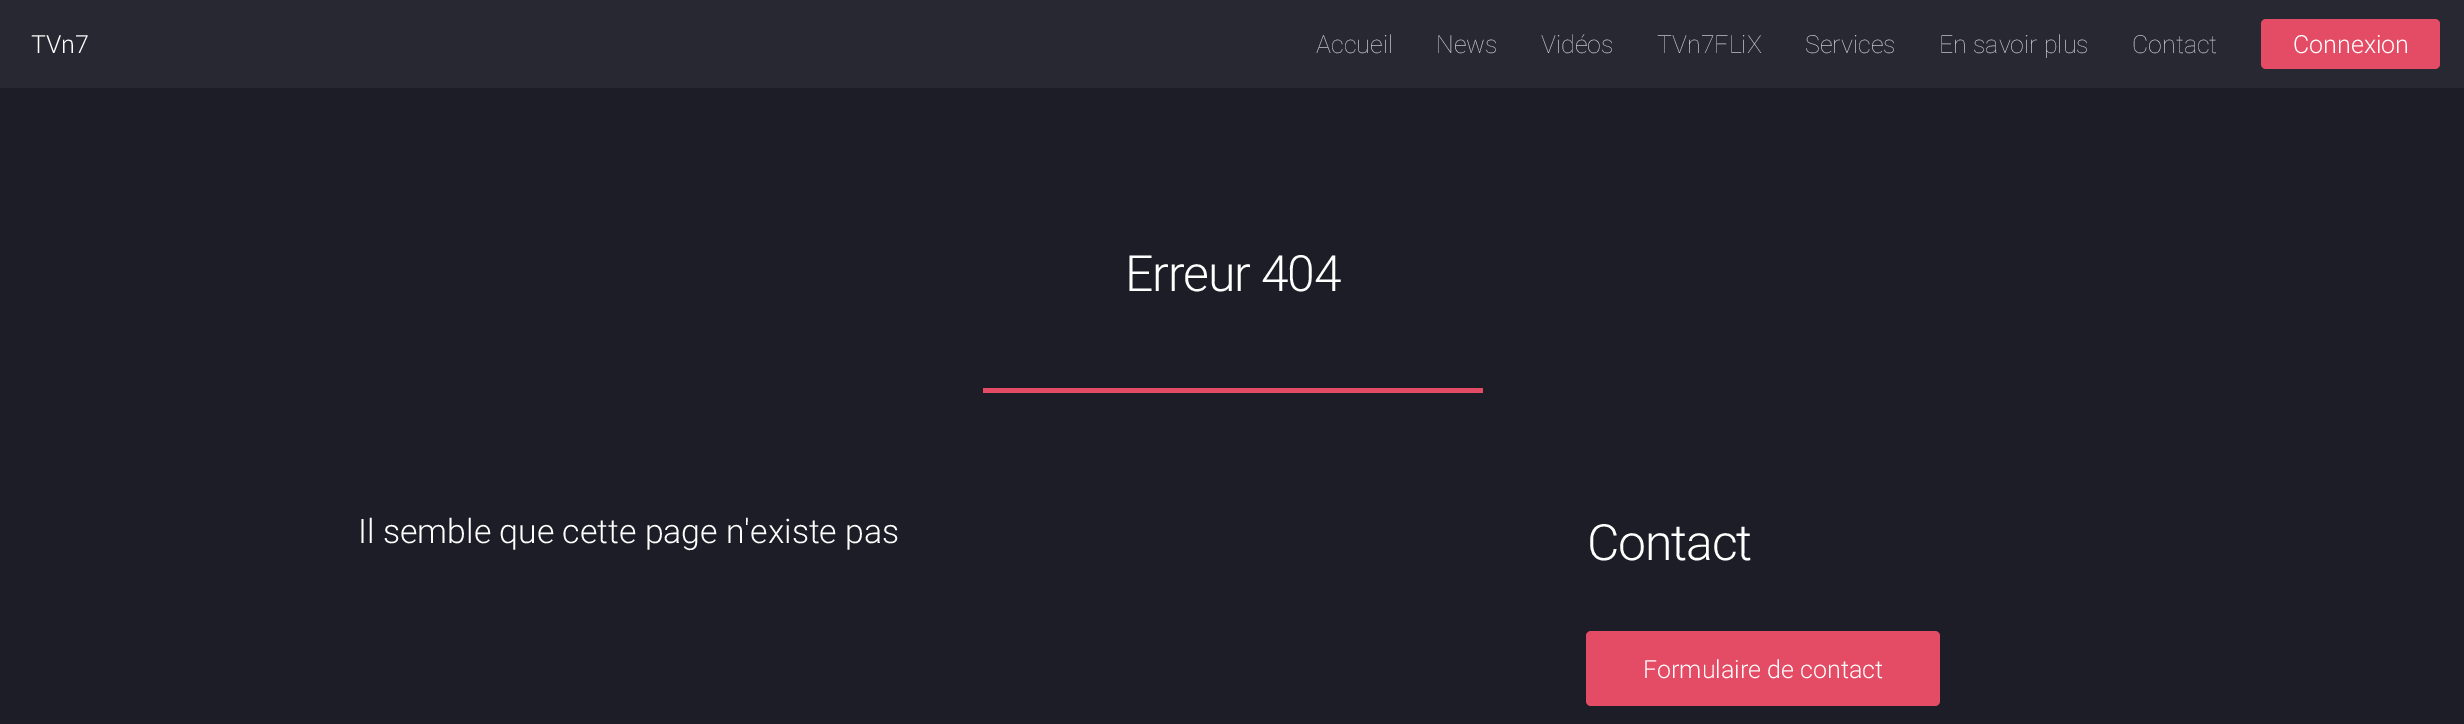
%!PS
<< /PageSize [2464 724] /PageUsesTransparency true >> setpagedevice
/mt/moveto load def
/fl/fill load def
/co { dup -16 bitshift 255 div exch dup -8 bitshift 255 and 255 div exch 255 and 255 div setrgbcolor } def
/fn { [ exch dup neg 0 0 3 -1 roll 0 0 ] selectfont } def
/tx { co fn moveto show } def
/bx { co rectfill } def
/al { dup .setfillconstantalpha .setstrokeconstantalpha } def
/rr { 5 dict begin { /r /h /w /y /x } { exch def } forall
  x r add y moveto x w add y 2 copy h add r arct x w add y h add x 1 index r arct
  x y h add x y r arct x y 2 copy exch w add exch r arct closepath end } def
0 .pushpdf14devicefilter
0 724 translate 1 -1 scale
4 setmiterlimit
0 0 2464 724 16#1C1D26 bx
0.96 al
0 0 2464 88 16#272833 bx
1 al
16#E44C65 co
2261 19 179 50 5 rr fl
983 388 500 5 16#E44C65 bx
1586 631 354 75 5 rr fl
(TVn7) 31 53 /Roboto-Light 25 16#FFFFFF tx
(Accueil) 1316 53 /Roboto-Thin 25 16#C9C9CC tx
(News) 1436 53 /Roboto-Thin 25 16#C9C9CC tx
(Vidéos) 1541 53 /Roboto-Thin 25 16#C9C9CC tx
(TVn7FLiX) 1657 53 /Roboto-Thin 25 16#C9C9CC tx
(Services) 1805 53 /Roboto-Thin 25 16#C9C9CC tx
(En savoir plus) 1939 53 /Roboto-Thin 25 16#C9C9CC tx
(Contact) 2132 53 /Roboto-Thin 25 16#C9C9CC tx
(Connexion) 2293 53 /Roboto-Light 25 16#FFFFFF tx
/Roboto-Light 50 fn
1125 291 mt -1.25 0 (Erreur 404) ashow
(Il semble que cette page n'existe pas) 358 543 /Roboto-Light 33.75 16#FFFFFF tx
/Roboto-Light 50 fn
1587 560 mt -1.25 0 (Contact) ashow
(Formulaire de contact) 1643 678 /Roboto-Light 25 16#FFFFFF tx
.poppdf14devicefilter showpage
